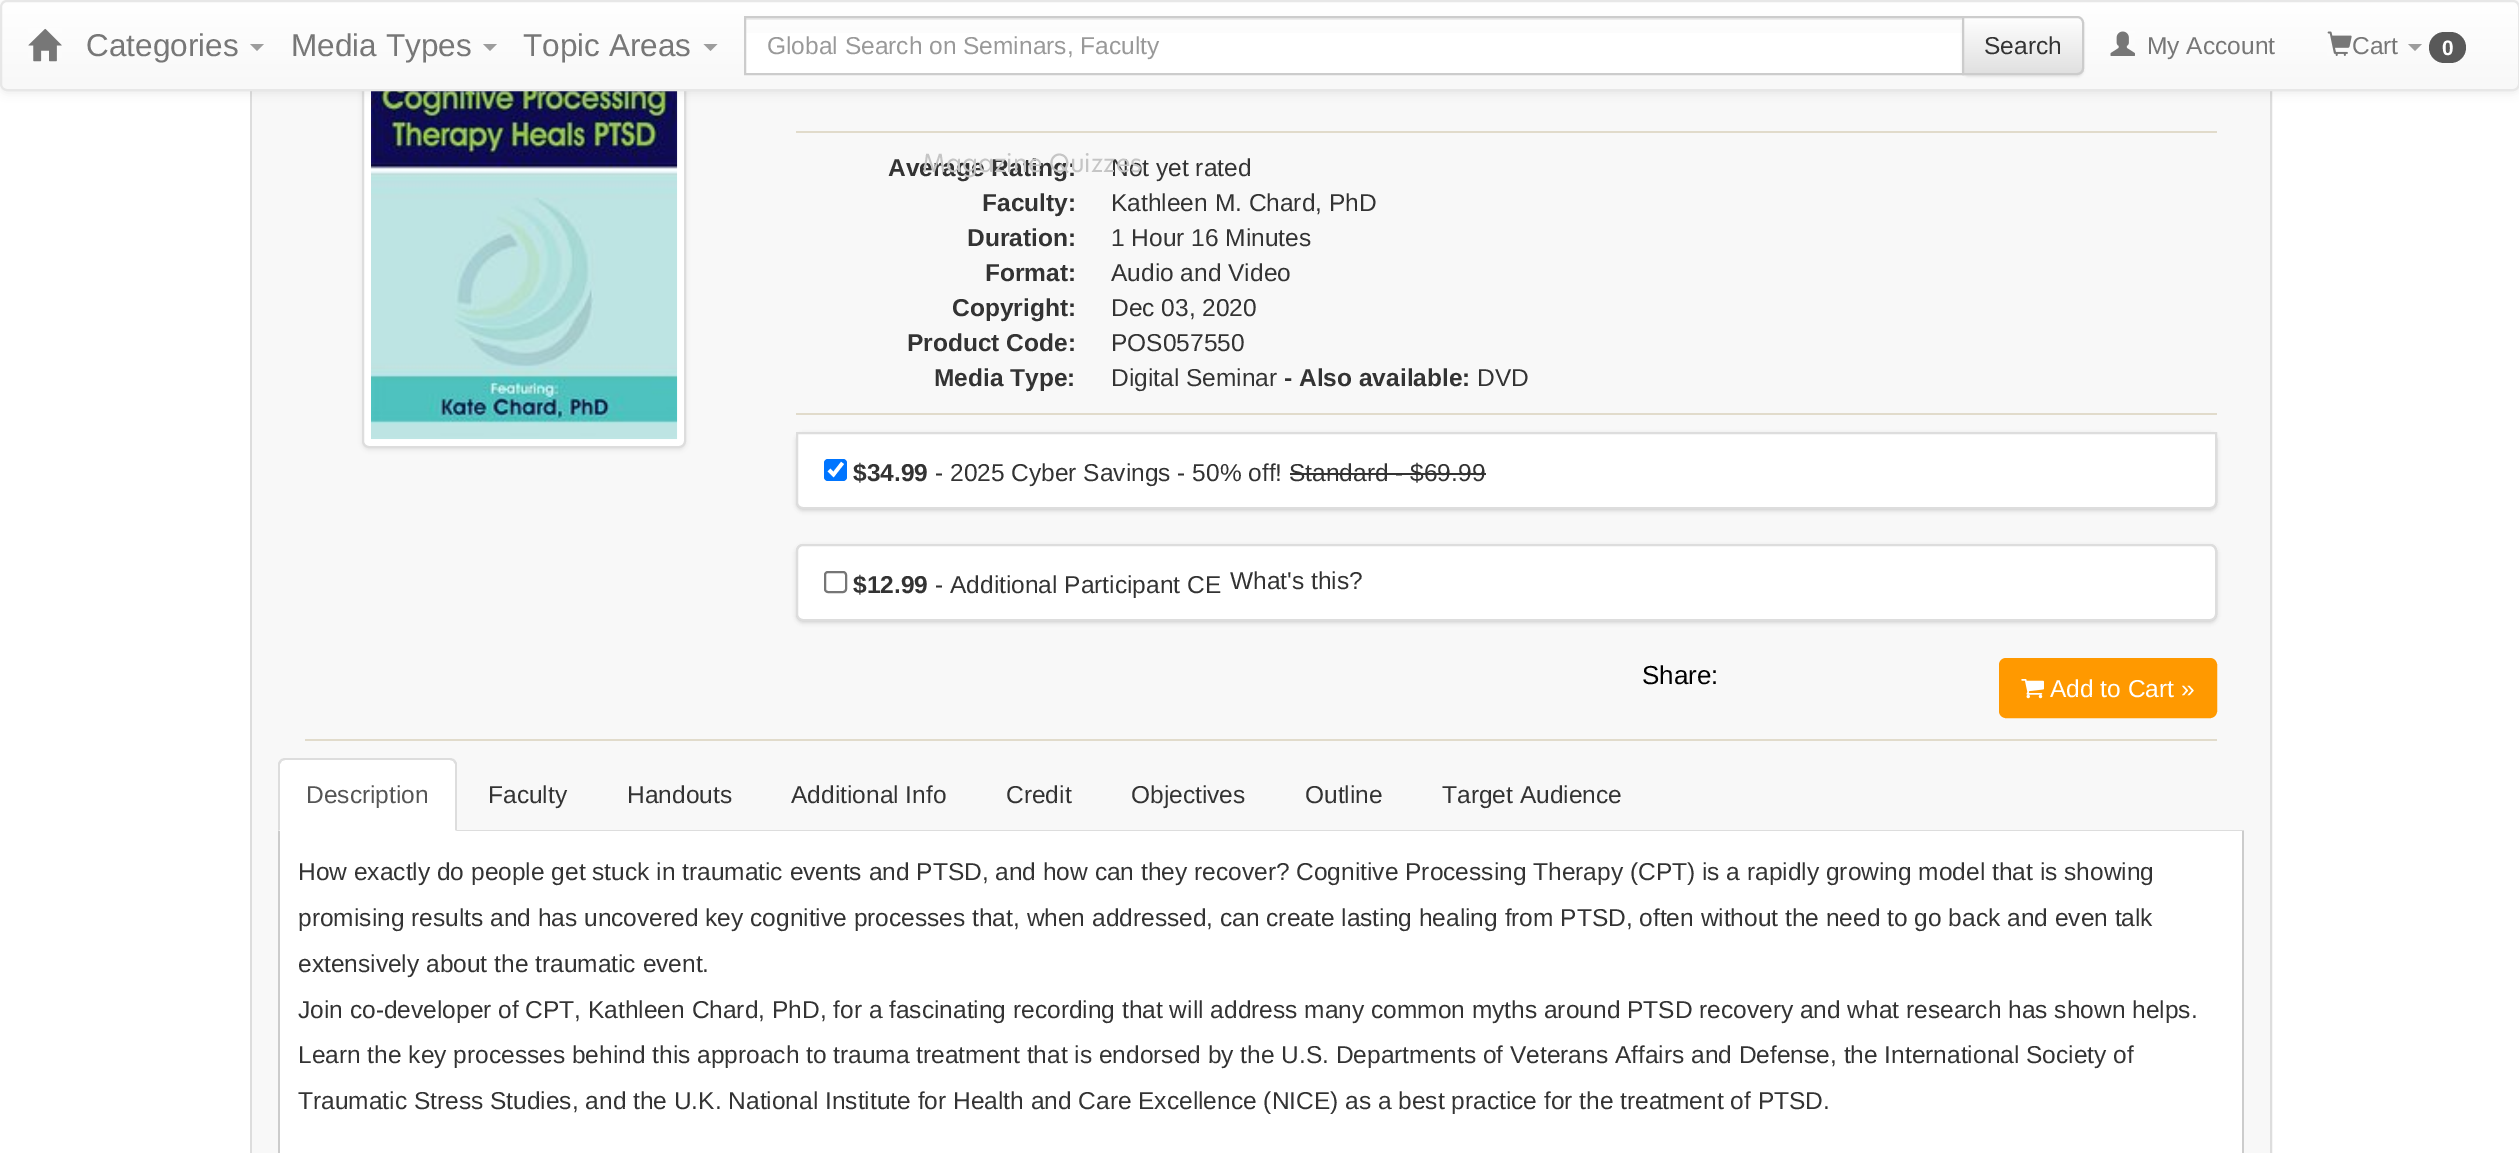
%!PS
<< /PageSize [2519 1153] /PageUsesTransparency true >> setpagedevice
/mt/moveto load def
/li/lineto load def
/ct/curveto load def
/cp/closepath load def
/fl/fill load def
/st/stroke load def
/gs/gsave load def
/gr/grestore load def
/lw/setlinewidth load def
/co { dup -16 bitshift 255 div exch dup -8 bitshift 255 and 255 div exch 255 and 255 div setrgbcolor } def
/fn { [ exch dup neg 0 0 3 -1 roll 0 0 ] selectfont } def
/tx { co fn moveto show } def
/bx { co rectfill } def
/al { dup .setfillconstantalpha .setstrokeconstantalpha } def
/rr { 5 dict begin { /r /h /w /y /x } { exch def } forall
  x r add y moveto x w add y 2 copy h add r arct x w add y h add x 1 index r arct
  x y h add x y r arct x y 2 copy exch w add exch r arct closepath end } def
/sh { 12 dict begin { /a /b /q /h /w /y /x } { exch def } forall gsave /was 0 def
  9 -2 -9 { dup b mul 4 div /e exch def 1 sub .425 mul 2.718 exch exp 1 add a .99 .min exch div /now exch def
    1 1 now sub 1 was sub div sub al /was now def
    w h .min e 2 mul add 0 gt { x e sub y e sub w e 2 mul add h e 2 mul add
      q e add b .6 mul add w h .min 2 div e add .min 0 .max rr fill } if } for grestore end } def
/im { 5 dict begin { /h /w /y /x /name } { exch def } forall
  gsave x y translate w h scale
  w h 8 [w 0 0 h 0 0] name (r) file false 3 colorimage grestore end } def
0 .pushpdf14devicefilter
0 1153 translate 1 -1 scale
4 setmiterlimit
0 0 2519 1153 16#FFFFFF bx
16#DDDDDD co
2 lw
251 -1 2020 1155 rectstroke
252 91 2018 1062 16#F8F8F8 bx
16#000000 co
362 -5 324 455 7 2 .07 sh
16#FFFFFF co
363 -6 322 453 6 rr gs fl gr
16#DDDDDD co
st
(media/4.raw) 371 91 307 349 im
16#000000 co
0 2 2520 91 7 4.5 .07 sh
gs
0 0 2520 91 7 rr clip newpath
gs 0 2 mt 2519 2 li 2519 89 li 0 89 li cp clip newpath
<< /ShadingType 2 /ColorSpace /DeviceRGB /Coords [1260 1.7 1260 89] /Extend [true true] /Function << /FunctionType 2 /Domain [0 1] /C0 [1 1 1] /C1 [.973 .973 .973] /N 1 >> >> shfill gr
gr
16#E7E7E7 co
1 1 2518 89 6 rr st
(media/1.raw) 28 28 34 34 im
16#9D9D9D co
250 44 mt 264 44 li 257 51 li cp fl
483 44 mt 497 44 li 490 51 li cp fl
703.5 44 mt 717.5 44 li 710.5 51 li cp fl
746 33 1216 40 16#FFFFFF bx
746 18 1216 2 16#ECECEC bx
16#CCCCCC co
745 17 1218 57 rectstroke
16#000000 co
1962 18 122 59 7 1 .07 sh
gs
1962 16 mt 2077 16 li 2081 16 2084 19 2084 23 ct 2084 68 li 2084 72 2081 75 2077 75 ct 1962 75 li cp clip newpath
gs 1964 18 mt 2084 18 li 2084 74 li 1964 74 li cp clip newpath
<< /ShadingType 2 /ColorSpace /DeviceRGB /Coords [2023 17 2023 74] /Extend [true true] /Function << /FunctionType 2 /Domain [0 1] /C0 [1 1 1] /C1 [.878 .878 .878] /N 1 >> >> shfill gr
gr
0.15 al
16#FFFFFF co
1964 19 mt 2077 19 li 2080 19 2082 22 2082 24 ct 2082 70 li 2081 73 li 2082 72 2083 70 2083 69 ct 2083 23 li 2083 20 2081 18 2078 18 ct 1964 18 li cp fl
1 al
16#CCCCCC co
1963 17 mt 2077 17 li 2080.5 17 2083 19.5 2083 23 ct 2083 68 li 2083 71.5 2080.5 74 2077 74 ct 1963 74 li cp st
(media/2.raw) 2110 31 25 25 im
(media/3.raw) 2327 31 25 25 im
16#9D9D9D co
2408 44 mt 2422 44 li 2415 51 li cp fl
16#595959 co
2429 32 37 31 15.5 rr fl
796 131 1421 2 16#E1DBCB bx
796 413 1421 2 16#E1DBCB bx
16#000000 co
796 434 1421 77 7 2 .05 sh
16#DDDDDD co
797 433 1419 75 6 rr st
16#000000 co
796 434 1421 77 7 2 .07 sh
16#FFFFFF co
797 433 mt 2216 433 li 2216 502 li 2216 505.5 2213.5 508 2210 508 ct 803 508 li 799.5 508 797 505.5 797 502 ct cp gs fl gr
16#DDDDDD co
st
16#0075FF co
824 459 23 22 4 rr fl
16#FFFFFF co
3.6 lw
829 470 mt 833.5 474.5 li 842.5 463 li st
1290 473 196 2 16#333333 bx
16#000000 co
796 546 1421 77 7 2 .05 sh
16#DDDDDD co
2 lw
797 545 1419 75 6 rr st
16#000000 co
796 546 1421 77 7 2 .07 sh
16#FFFFFF co
797 545 1419 75 6 rr gs fl gr
16#DDDDDD co
st
16#767676 co
825 572 21 20 3 rr st
16#FF9900 co
2000 659 216 58 6 rr gs fl gr
st
(media/5.raw) 2021 679 23 20 im
305 739 1912 2 16#E1DBCB bx
457 830 1787 1 16#DDDDDD bx
16#FFFFFF co
285 758 mt 450 758 li 454 758 457 761 457 765 ct 457 831 li 278 831 li 278 765 li 278 761 281 758 285 758 ct cp fl
16#DDDDDD co
285 758 mt 283 758 281 759 280 760 ct 282 761 li 285 760 li 422 760 li 450 760 li 453 761 li 455 760 li 454 759 452 758 450 758 ct cp fl
455 760 mt 457 763 li 457 831 li 455 830 li 455 764 li 453 761 li cp fl
278 763 mt 280 760 li 282 761 li 280 764 li 280 830 li 278 831 li cp fl
280 831 1962 322 16#FFFFFF bx
2242 831 2 322 16#CCCCCC bx
278 831 2 322 16#CCCCCC bx
(Categories) 86 56 /LiberationSans-Regular 31.5 16#777777 tx
(Media Types) 291 56 /LiberationSans-Regular 31.5 16#777777 tx
(Topic Areas) 523 56 /LiberationSans-Regular 31.5 16#777777 tx
(Global Search on Seminars, Faculty) 767 54 /LiberationSans-Regular 24.5 16#999999 tx
(Search) 1984 54 /LiberationSans-Regular 24.5 16#333333 tx
(My Account) 2147 54 /LiberationSans-Regular 24.5 16#777777 tx
(Cart) 2352 54 /LiberationSans-Regular 24.5 16#777777 tx
(0) 2442 55 /LiberationSans-Bold 21 16#FFFFFF tx
(Average Rating:) 888 176 /LiberationSans-Bold 24.5 16#333333 tx
(Not yet rated) 1111 176 /LiberationSans-Regular 24.5 16#333333 tx
(Magazine Quizzes) 922 172 /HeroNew-Regular 24.5 16#C5C5C5 tx
(Faculty:) 982 211 /LiberationSans-Bold 24.5 16#333333 tx
(Kathleen M. Chard, PhD) 1111 211 /LiberationSans-Regular 24.5 16#333333 tx
(Duration:) 967 246 /LiberationSans-Bold 24.5 16#333333 tx
(1 Hour 16 Minutes) 1111 246 /LiberationSans-Regular 24.5 16#333333 tx
(Format:) 985 281 /LiberationSans-Bold 24.5 16#333333 tx
(Audio and Video) 1111 281 /LiberationSans-Regular 24.5 16#333333 tx
(Copyright:) 952 316 /LiberationSans-Bold 24.5 16#333333 tx
(Dec 03, 2020) 1111 316 /LiberationSans-Regular 24.5 16#333333 tx
(Product Code:) 907 351 /LiberationSans-Bold 24.5 16#333333 tx
(POS057550) 1111 351 /LiberationSans-Regular 24.5 16#333333 tx
(Media Type:) 934 386 /LiberationSans-Bold 24.5 16#333333 tx
(Digital Seminar) 1111 386 /LiberationSans-Regular 24.5 16#333333 tx
(- Also available:) 1284 386 /LiberationSans-Bold 24.5 16#333333 tx
(DVD) 1477 386 /LiberationSans-Regular 24.5 16#333333 tx
($34.99) 853 481 /LiberationSans-Bold 24.5 16#333333 tx
(- 2025 Cyber Savings - 50% off! Standard - $69.99) 935 481 /LiberationSans-Regular 24.5 16#333333 tx
($12.99) 853 593 /LiberationSans-Bold 24.5 16#333333 tx
(- Additional Participant CE) 935 593 /LiberationSans-Regular 24.5 16#333333 tx
(What's this?) 1230 589 /LiberationSans-Regular 24.5 16#333333 tx
(Share:) 1642 684 /LiberationSans-Regular 26 16#000000 tx
(Add to Cart ») 2050 697 /LiberationSans-Regular 24.5 16#FFFFFF tx
(Description) 306 803 /LiberationSans-Regular 24.5 16#555555 tx
(Faculty) 488 803 /LiberationSans-Regular 24.5 16#333333 tx
(Handouts) 627 803 /LiberationSans-Regular 24.5 16#333333 tx
(Additional Info) 791 803 /LiberationSans-Regular 24.5 16#333333 tx
(Credit) 1006 803 /LiberationSans-Regular 24.5 16#333333 tx
(Objectives) 1131 803 /LiberationSans-Regular 24.5 16#333333 tx
(Outline) 1305 803 /LiberationSans-Regular 24.5 16#333333 tx
(Target Audience) 1442 803 /LiberationSans-Regular 24.5 16#333333 tx
(How exactly do people get stuck in traumatic events and PTSD, and how can they recover? Cognitive Processing Therapy \(CPT\) is a rapidly growing model that is showing) 298 880 /LiberationSans-Regular 24.5 16#333333 tx
(promising results and has uncovered key cognitive processes that, when addressed, can create lasting healing from PTSD, often without the need to go back and even talk) 298 926 /LiberationSans-Regular 24.5 16#333333 tx
(extensively about the traumatic event.) 298 972 /LiberationSans-Regular 24.5 16#333333 tx
(Join co-developer of CPT, Kathleen Chard, PhD, for a fascinating recording that will address many common myths around PTSD recovery and what research has shown helps.) 298 1018 /LiberationSans-Regular 24.5 16#333333 tx
(Learn the key processes behind this approach to trauma treatment that is endorsed by the U.S. Departments of Veterans Affairs and Defense, the International Society of) 298 1063 /LiberationSans-Regular 24.5 16#333333 tx
(Traumatic Stress Studies, and the U.K. National Institute for Health and Care Excellence \(NICE\) as a best practice for the treatment of PTSD.) 298 1109 /LiberationSans-Regular 24.5 16#333333 tx
.poppdf14devicefilter showpage
